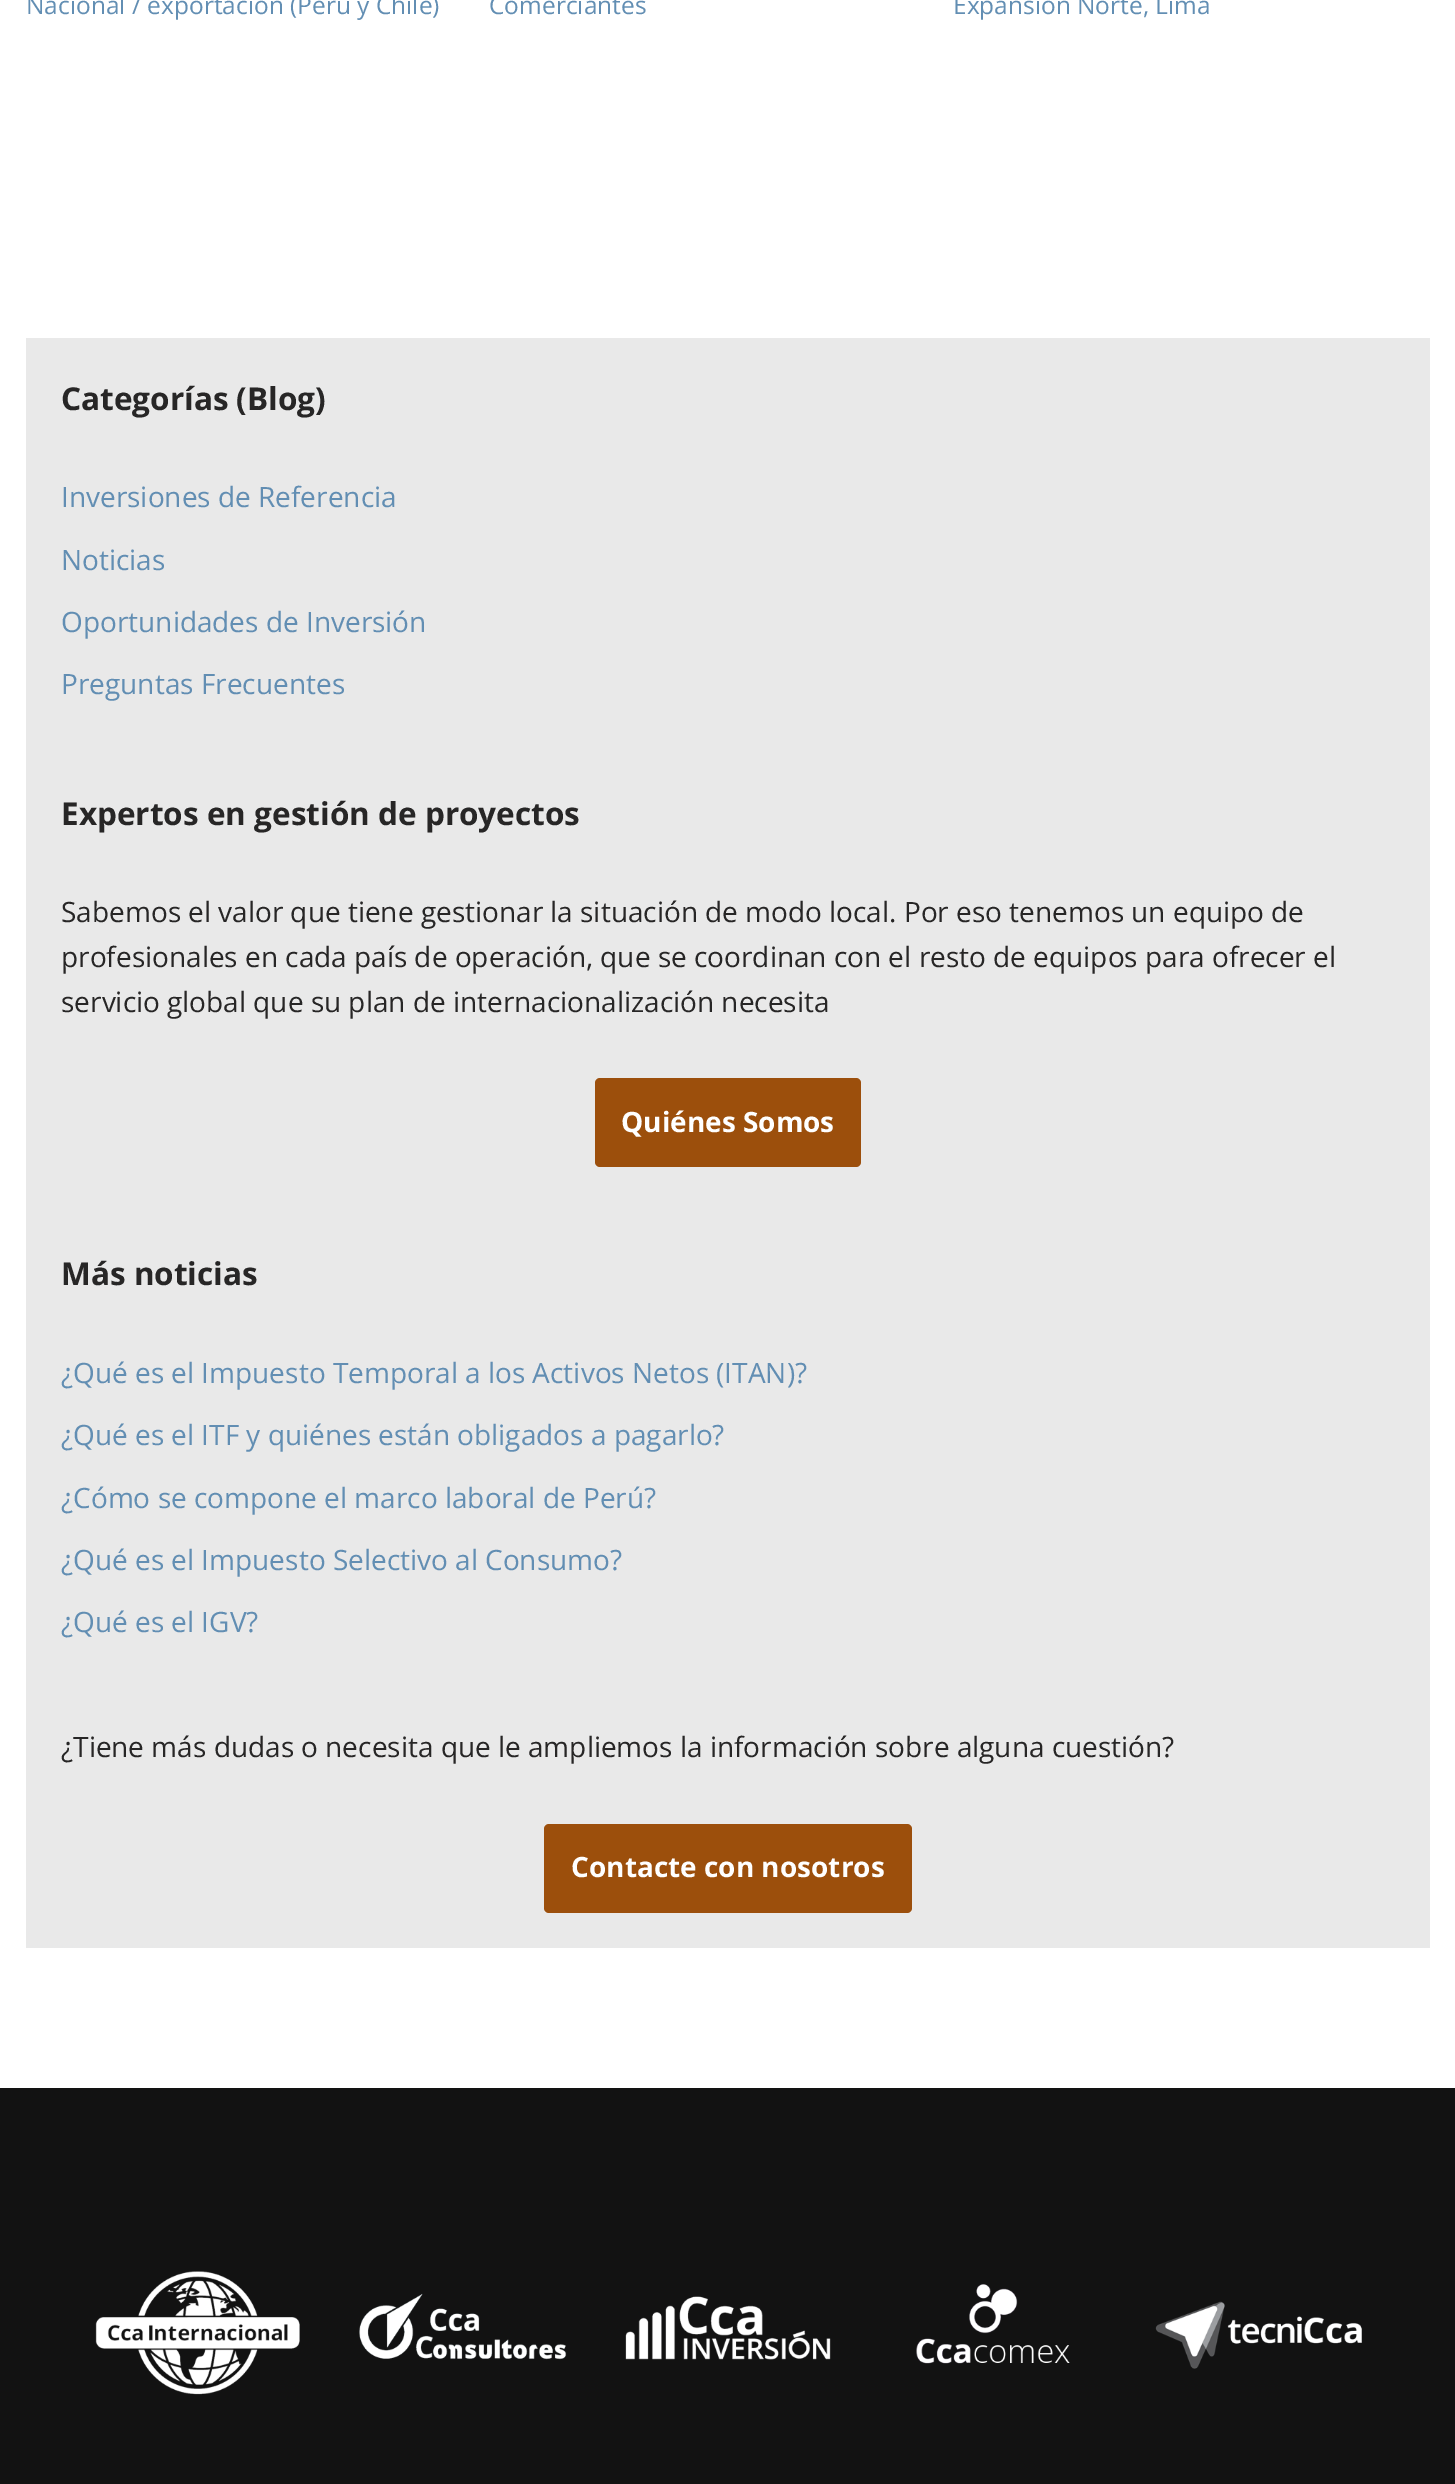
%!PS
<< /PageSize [1455 2484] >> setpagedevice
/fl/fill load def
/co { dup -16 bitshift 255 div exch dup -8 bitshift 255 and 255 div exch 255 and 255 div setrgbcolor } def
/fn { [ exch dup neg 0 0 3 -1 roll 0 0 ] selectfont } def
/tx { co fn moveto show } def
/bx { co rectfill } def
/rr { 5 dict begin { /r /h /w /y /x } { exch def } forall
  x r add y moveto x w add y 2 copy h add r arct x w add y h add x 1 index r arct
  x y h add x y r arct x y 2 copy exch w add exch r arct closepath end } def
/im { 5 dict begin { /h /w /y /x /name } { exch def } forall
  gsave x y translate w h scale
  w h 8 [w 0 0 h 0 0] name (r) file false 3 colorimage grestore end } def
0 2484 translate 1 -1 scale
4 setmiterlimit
0 0 1455 2484 16#FFFFFF bx
26 338 1404 1610 16#E9E9E9 bx
16#9C4F0C co
595 1078 266 89 5 rr fl
544 1824 368 89 5 rr fl
0 2088 1455 396 16#121212 bx
(media/1.raw) 95 2271 205 124 im
(media/2.raw) 359 2293 208 67 im
(media/3.raw) 625 2296 206 64 im
(media/4.raw) 916 2284 154 80 im
(media/5.raw) 1155 2301 207 68 im
(Nacional / exportación \(Perú y Chile\)) 26 14 /OpenSans-Regular 24.5 16#628EB3 tx
(Comerciantes) 489 14 /OpenSans-Regular 24.5 16#628EB3 tx
(Expansion Norte, Lima) 953 14 /OpenSans-Regular 24.5 16#628EB3 tx
(Categorías \(Blog\)) 61 410 /OpenSans-Bold 31.5 16#272626 tx
(Inversiones de Referencia) 61 507 /OpenSans-Regular 28 16#628EB3 tx
(Noticias) 61 570 /OpenSans-Regular 28 16#628EB3 tx
(Oportunidades de Inversión) 61 632 /OpenSans-Regular 28 16#628EB3 tx
(Preguntas Frecuentes) 61 694 /OpenSans-Regular 28 16#628EB3 tx
(Expertos en gestión de proyectos) 61 825 /OpenSans-Bold 31.5 16#272626 tx
(Sabemos el valor que tiene gestionar la situación de modo local. Por eso tenemos un equipo de) 61 922 /OpenSans-Regular 28 16#272626 tx
(profesionales en cada país de operación, que se coordinan con el resto de equipos para ofrecer el) 61 967 /OpenSans-Regular 28 16#272626 tx
(servicio global que su plan de internacionalización necesita) 61 1012 /OpenSans-Regular 28 16#272626 tx
(Quiénes Somos) 621 1132 /OpenSans-Bold 28 16#FFFFFF tx
(Más noticias) 61 1285 /OpenSans-Bold 31.5 16#272626 tx
(¿Qué es el Impuesto Temporal a los Activos Netos \(ITAN\)?) 61 1383 /OpenSans-Regular 28 16#628EB3 tx
(¿Qué es el ITF y quiénes están obligados a pagarlo?) 61 1445 /OpenSans-Regular 28 16#628EB3 tx
(¿Cómo se compone el marco laboral de Perú?) 61 1508 /OpenSans-Regular 28 16#628EB3 tx
(¿Qué es el Impuesto Selectivo al Consumo?) 61 1570 /OpenSans-Regular 28 16#628EB3 tx
(¿Qué es el IGV?) 61 1632 /OpenSans-Regular 28 16#628EB3 tx
(¿Tiene más dudas o necesita que le ampliemos la información sobre alguna cuestión?) 61 1757 /OpenSans-Regular 28 16#272626 tx
(Contacte con nosotros) 571 1877 /OpenSans-Bold 28 16#FFFFFF tx
showpage
